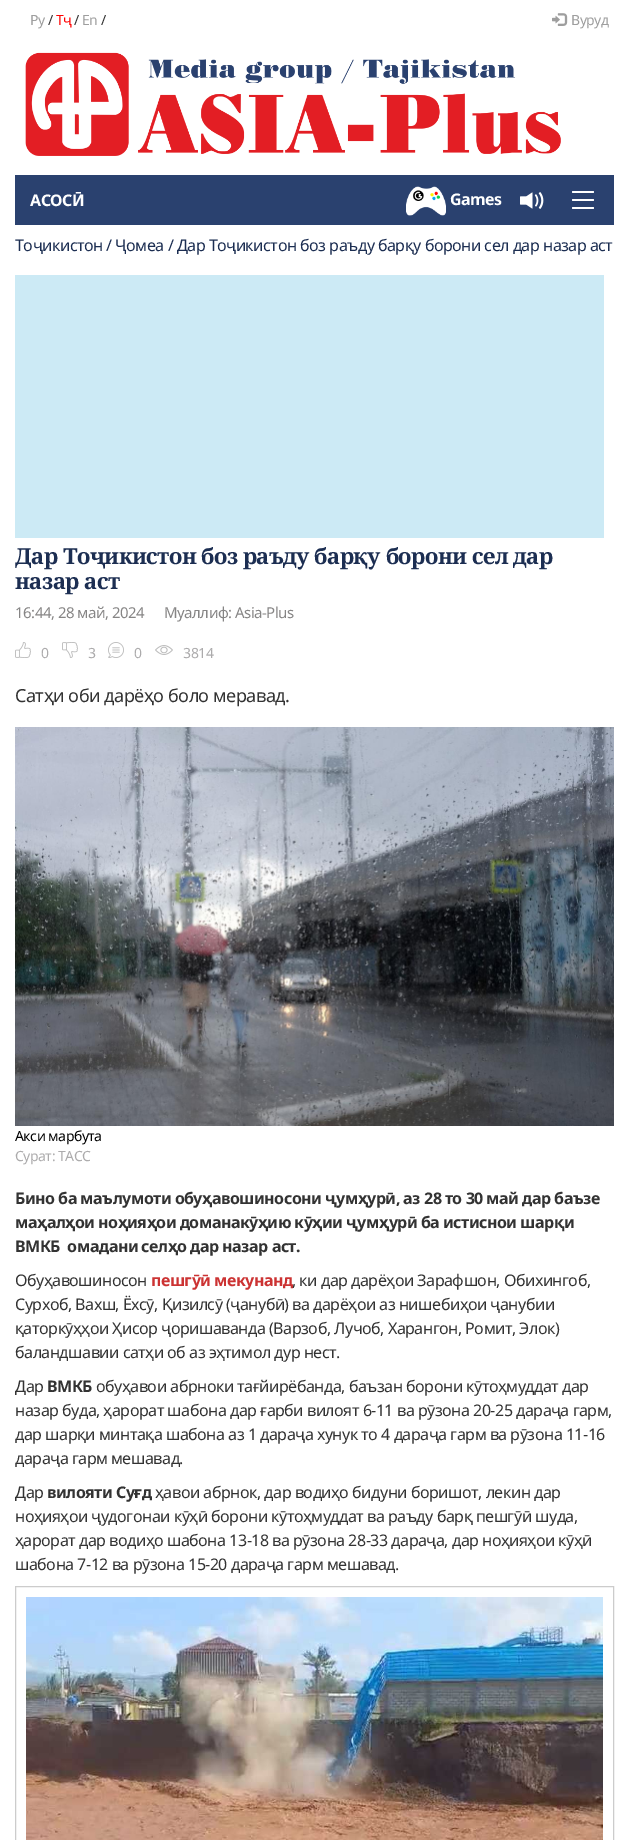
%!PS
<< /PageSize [629 1840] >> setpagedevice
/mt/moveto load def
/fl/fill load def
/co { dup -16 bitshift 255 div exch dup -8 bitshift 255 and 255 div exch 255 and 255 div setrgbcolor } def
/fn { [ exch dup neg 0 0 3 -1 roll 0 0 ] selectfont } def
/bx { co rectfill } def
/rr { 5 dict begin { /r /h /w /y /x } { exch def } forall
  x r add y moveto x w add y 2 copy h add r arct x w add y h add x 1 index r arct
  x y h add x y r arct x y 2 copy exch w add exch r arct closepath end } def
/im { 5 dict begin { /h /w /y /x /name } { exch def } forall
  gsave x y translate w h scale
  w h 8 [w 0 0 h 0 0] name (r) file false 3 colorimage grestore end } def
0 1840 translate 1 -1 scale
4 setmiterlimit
0 0 629 1840 16#FFFFFF bx
(media/1.raw) 552 13 16 13 im
(media/2.raw) 25 52 536 104 im
15 175 599 50 16#2A416F bx
(media/3.raw) 406 186 40 30 im
(media/4.raw) 520 192 24 17 im
16#FFFFFF co
572 191 22 2 1 rr fl
572 199 22 2 1 rr fl
572 207 22 2 1 rr fl
15 275 589 263 16#CCEAF5 bx
(media/5.raw) 15 642 16 16 im
(media/6.raw) 62 642 16 16 im
(media/7.raw) 108 642 16 16 im
(media/8.raw) 155 645 18 10 im
(media/9.raw) 15 727 599 399 im
16#CCCCCC co
15.5 1586.5 598 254 rectstroke
(media/10.raw) 26 1597 577 243 im
/NotoSans-Regular 14 fn
16#9E9E9E co
30 25 mt -.5 0 (Ру) ashow
16#333333 co
48 25 mt -.5 0 (/) ashow
16#FF0000 co
56 25 mt -.5 0 (Тҷ) ashow
16#333333 co
74 25 mt -.5 0 (/) ashow
16#9E9E9E co
82 25 mt -.5 0 (En) ashow
16#333333 co
101 25 mt -.5 0 (/) ashow
16#9E9E9E co
571 25 mt -.5 0 (Вуруд) ashow
/NotoSans-Bold 16 fn
16#FFFFFF co
30 206 mt -.5 0 (АСОСӢ) ashow
450 205 mt -.5 0 (Games) ashow
/NotoSans-Regular 16 fn
16#1C2E52 co
15 251 mt -.5 0 (Тоҷикистон / Ҷомеа / Дар Тоҷикистон боз раъду барқу борони сел дар назар аст) ashow
/NotoSerif-Bold 22 fn
15 564 mt -.5 0 (Дар Тоҷикистон боз раъду барқу борони сел дар) ashow
15 589 mt -.5 0 (назар аст) ashow
/NotoSans-Regular 15 fn
16#868585 co
15 618 mt -.5 0 (16:44, 28 май, 2024) ashow
164 618 mt -.5 0 (Муаллиф: Asia-Plus) ashow
/NotoSans-Regular 14 fn
16#ACABAC co
41 658 mt -.5 0 (0) ashow
88 658 mt -.5 0 (3) ashow
134 658 mt -.5 0 (0) ashow
183 658 mt -.5 0 (3814) ashow
/NotoSans-Regular 18 fn
16#333333 co
15 702 mt -.5 0 (Сатҳи оби дарёҳо боло меравад.) ashow
/NotoSans-Regular 14 fn
16#000000 co
15 1141 mt -.5 0 (Акси марбута) ashow
16#ACABAC co
15 1161 mt -.5 0 (Сурат: ТАСС) ashow
/NotoSans-Bold 16 fn
16#333333 co
15 1204 mt -.5 0 (Бино ба маълумоти обуҳавошиносони ҷумҳурӣ, аз 28 то 30 май дар баъзе) ashow
15 1228 mt -.5 0 (маҳалҳои ноҳияҳои доманакӯҳию кӯҳии ҷумҳурӣ ба истиснои шарқи) ashow
15 1252 mt -.5 0 (ВМКБ  омадани селҳо дар назар аст.) ashow
/NotoSans-Regular 16 fn
15 1286 mt -.5 0 (Обуҳавошиносон) ashow
/NotoSans-Bold 16 fn
16#CC3333 co
151 1286 mt -.5 0 (пешгӯӣ мекунанд) ashow
/NotoSans-Regular 16 fn
16#333333 co
292 1286 mt -.5 0 (, ки дар дарёҳои Зарафшон, Обихингоб,) ashow
15 1310 mt -.5 0 (Сурхоб, Вахш, Ёхсӯ, Қизилсӯ \(ҷанубӣ\) ва дарёҳои аз нишебиҳои ҷанубии) ashow
15 1334 mt -.5 0 (қаторкӯҳҳои Ҳисор ҷоришаванда \(Варзоб, Лучоб, Харангон, Ромит, Элок\)) ashow
15 1358 mt -.5 0 (баландшавии сатҳи об аз эҳтимол дур нест.) ashow
15 1392 mt -.5 0 (Дар) ashow
/NotoSans-Bold 16 fn
47 1392 mt -.5 0 (ВМКБ) ashow
/NotoSans-Regular 16 fn
96 1392 mt -.5 0 (обуҳавои абрноки тағйирёбанда, баъзан борони кӯтоҳмуддат дар) ashow
15 1416 mt -.5 0 (назар буда, ҳарорат шабона дар ғарби вилоят 6-11 ва рӯзона 20-25 дараҷа гарм,) ashow
15 1440 mt -.5 0 (дар шарқи минтақа шабона аз 1 дараҷа хунук то 4 дараҷа гарм ва рӯзона 11-16) ashow
15 1464 mt -.5 0 (дараҷа гарм мешавад.) ashow
15 1498 mt -.5 0 (Дар) ashow
/NotoSans-Bold 16 fn
47 1498 mt -.5 0 (вилояти Суғд) ashow
/NotoSans-Regular 16 fn
155 1498 mt -.5 0 (ҳавои абрнок, дар водиҳо бидуни боришот, лекин дар) ashow
15 1522 mt -.5 0 (ноҳияҳои ҷудогонаи кӯҳӣ борони кӯтоҳмуддат ва раъду барқ пешгӯӣ шуда,) ashow
15 1546 mt -.5 0 (ҳарорат дар водиҳо шабона 13-18 ва рӯзона 28-33 дараҷа, дар ноҳияҳои кӯҳӣ) ashow
15 1570 mt -.5 0 (шабона 7-12 ва рӯзона 15-20 дараҷа гарм мешавад.) ashow
showpage
